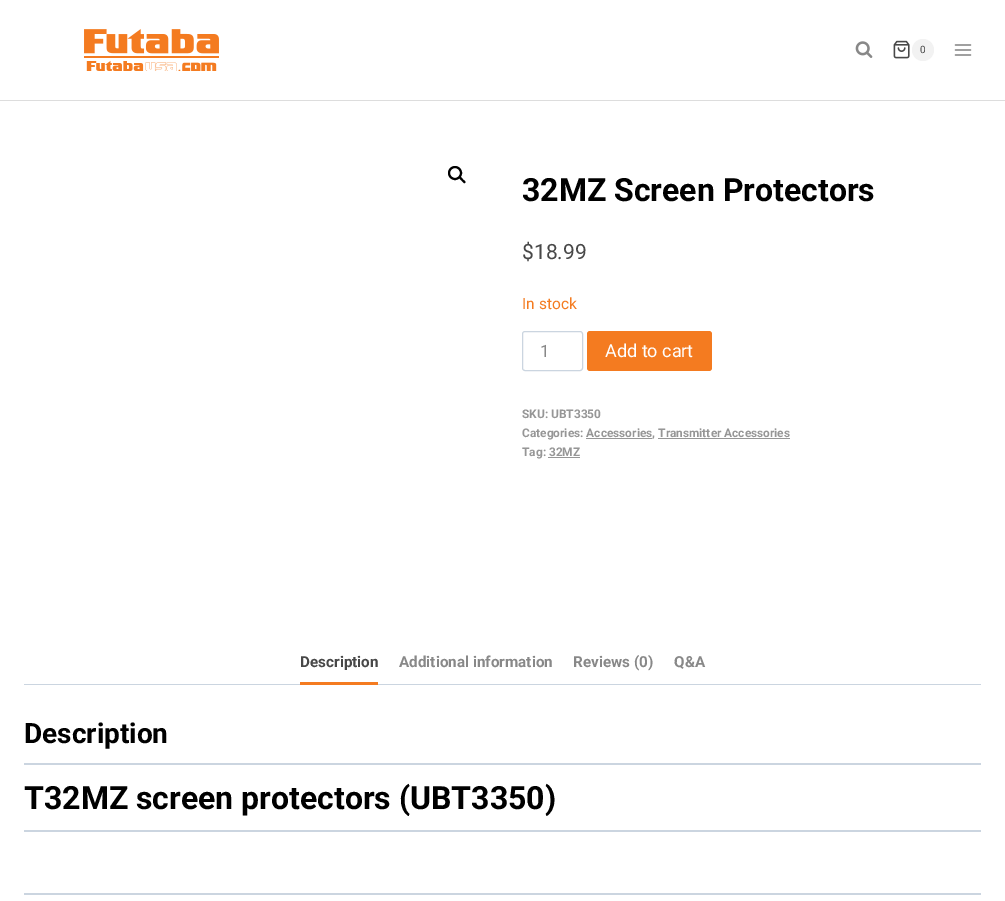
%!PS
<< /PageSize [1005 901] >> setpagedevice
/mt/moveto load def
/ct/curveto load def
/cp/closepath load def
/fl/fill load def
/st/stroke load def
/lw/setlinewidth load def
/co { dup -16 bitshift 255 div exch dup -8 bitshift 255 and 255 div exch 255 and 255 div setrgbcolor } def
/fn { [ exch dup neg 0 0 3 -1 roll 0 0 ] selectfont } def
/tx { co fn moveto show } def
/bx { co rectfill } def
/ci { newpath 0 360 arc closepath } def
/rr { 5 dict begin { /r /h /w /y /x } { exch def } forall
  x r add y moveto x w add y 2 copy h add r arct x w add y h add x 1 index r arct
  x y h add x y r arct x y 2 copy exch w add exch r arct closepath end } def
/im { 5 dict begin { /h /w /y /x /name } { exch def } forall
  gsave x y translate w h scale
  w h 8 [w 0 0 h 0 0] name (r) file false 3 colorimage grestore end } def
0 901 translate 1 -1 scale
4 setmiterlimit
0 0 1005 901 16#FFFFFF bx
0 100 1005 1 16#DDDDDD bx
(media/1.raw) 84 29 135 42 im
(media/2.raw) 855 41 18 17 im
(media/3.raw) 893 40 17 19 im
16#F2F2F2 co
923 50 11 ci fl
(media/4.raw) 954 44 18 12 im
16#000000 co
2 lw
455 173 6 ci st
459.5 177 mt 460.5 176 462.5 178.5 463 179.5 ct 463.5 180 466.5 181.5 465 183 ct 464 184 462.5 181.5 461.5 180.5 ct 461 180 458.5 178.5 459.5 177 ct cp fl
16#CBD5E0 co
1 lw
522.5 331.5 60 39 2.5 rr st
16#F47B20 co
587 331 125 40 3 rr fl
586 438 66 1 16#969696 bx
658 438 132 1 16#969696 bx
548 457 32 1 16#969696 bx
24 684 957 1 16#CBD5E0 bx
300 682 78 3 16#F47B20 bx
24 763 957 2 16#CBD5E0 bx
24 830 957 2 16#CBD5E0 bx
24 893 957 2 16#CBD5E0 bx
(0) 920 53 /Roboto-Regular 10 16#484848 tx
(32MZ Screen Protectors) 522 201 /Roboto-Bold 32 16#000000 tx
($18.99) 522 259 /Roboto-Regular 21 16#484848 tx
(In stock) 522 309 /Roboto-Regular 15.5 16#F47B20 tx
(1) 540 357 /Roboto-Regular 17 16#888888 tx
(Add to cart) 605 357 /Roboto-Regular 18 16#FFFFFF tx
(SKU: UBT3350) 522 418 /Roboto-Bold 11.9 16#969696 tx
(Categories: Accessories, Transmitter Accessories) 522 437 /Roboto-Bold 11.9 16#969696 tx
(Tag: 32MZ) 522 456 /Roboto-Bold 11.9 16#969696 tx
(Description) 300 667 /Roboto-Bold 15.25 16#484848 tx
(Additional information) 399 667 /Roboto-Bold 15.25 16#888888 tx
(Reviews \(0\)) 573 667 /Roboto-Bold 15.25 16#888888 tx
(Q&A) 674 667 /Roboto-Bold 15.25 16#888888 tx
(Description) 24 743 /Roboto-Bold 28 16#000000 tx
(T32MZ screen protectors \(UBT3350\)) 24 809 /Roboto-Bold 32 16#000000 tx
showpage
